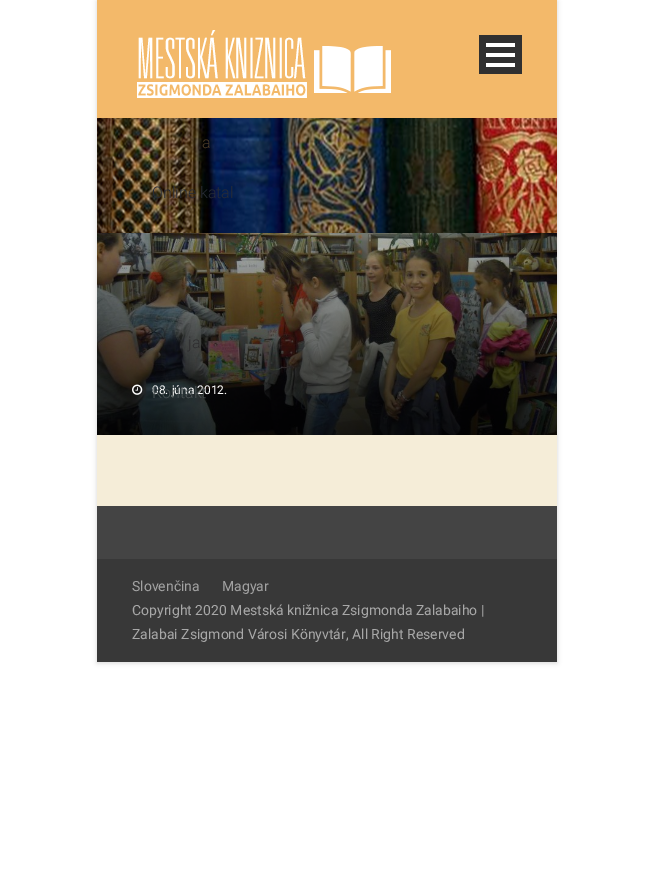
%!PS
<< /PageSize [653 886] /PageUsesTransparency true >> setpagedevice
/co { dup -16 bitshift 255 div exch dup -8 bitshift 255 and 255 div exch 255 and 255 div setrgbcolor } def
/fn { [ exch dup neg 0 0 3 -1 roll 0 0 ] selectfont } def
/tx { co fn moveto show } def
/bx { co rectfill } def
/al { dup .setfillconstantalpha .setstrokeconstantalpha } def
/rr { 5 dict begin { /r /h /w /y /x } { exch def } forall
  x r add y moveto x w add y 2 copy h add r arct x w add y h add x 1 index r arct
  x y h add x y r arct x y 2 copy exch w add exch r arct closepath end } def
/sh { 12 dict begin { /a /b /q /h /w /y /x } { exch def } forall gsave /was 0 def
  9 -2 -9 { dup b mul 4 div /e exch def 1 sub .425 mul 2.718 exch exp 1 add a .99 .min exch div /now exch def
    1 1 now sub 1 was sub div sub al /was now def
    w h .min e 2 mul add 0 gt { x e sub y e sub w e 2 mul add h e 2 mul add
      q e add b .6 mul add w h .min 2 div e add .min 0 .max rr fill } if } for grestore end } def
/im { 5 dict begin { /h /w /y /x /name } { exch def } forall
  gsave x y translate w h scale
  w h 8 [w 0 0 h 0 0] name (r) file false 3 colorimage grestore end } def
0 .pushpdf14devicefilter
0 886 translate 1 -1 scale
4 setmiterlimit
0 0 653 886 16#FFFFFF bx
16#000000 co
97 1 460 662 0 2.5 .15 sh
(media/1.raw) 97 118 460 115 im
97 0 460 118 16#F3B96A bx
(media/2.raw) 137 30 254 68 im
479 35 43 39 16#303030 bx
486 63 29 4 16#FFFFFF bx
486 53 29 4 16#FFFFFF bx
486 43 29 4 16#FFFFFF bx
97 435 460 71 16#F5EDD8 bx
(media/3.raw) 97 233 460 202 im
(media/4.raw) 97 233 460 202 im
(media/5.raw) 132 384 11 11 im
97 506 460 53 16#444444 bx
97 559 460 103 16#383838 bx
(a) 202 148 /Roboto-Light 16 16#4D3C27 tx
(Online katal) 152 198 /Roboto-Light 16 16#272B35 tx
(ja) 188 348 /Roboto-Light 16 16#2D2C2E tx
(08. júna 2012.) 152 394 /Roboto-Regular 12 16#FFFFFF tx
(Kontakt) 152 398 /Roboto-Light 16 16#4A5253 tx
(Slovenčina) 132 591 /Roboto-Regular 14 16#A2A2A2 tx
(Magyar) 222 591 /Roboto-Regular 14 16#A2A2A2 tx
(Copyright 2020 Mestská knižnica Zsigmonda Zalabaiho |) 132 615 /Roboto-Regular 14 16#A8A8A8 tx
(Zalabai Zsigmond Városi Könyvtár, All Right Reserved) 132 639 /Roboto-Regular 14 16#A8A8A8 tx
.poppdf14devicefilter showpage
